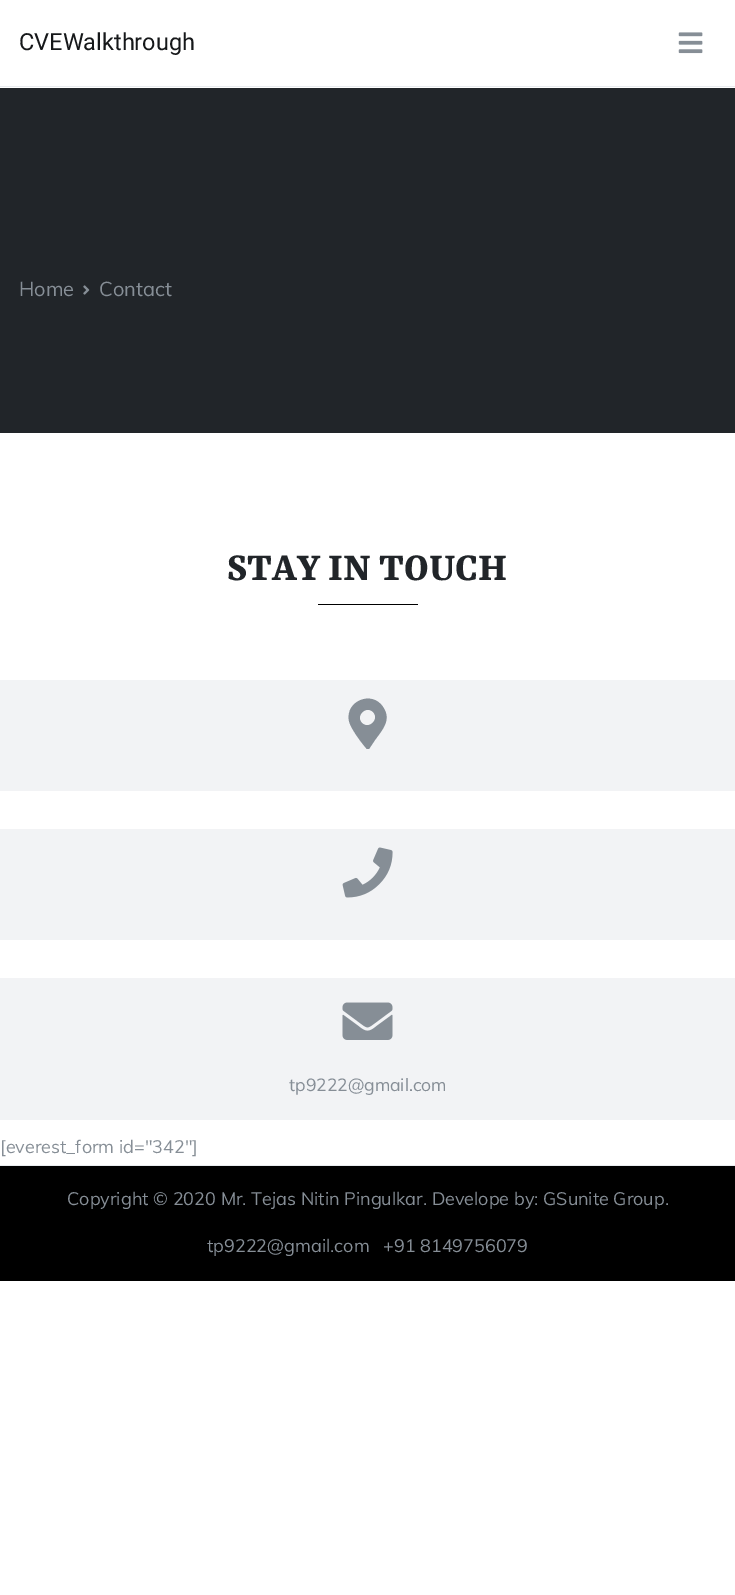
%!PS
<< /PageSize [735 1595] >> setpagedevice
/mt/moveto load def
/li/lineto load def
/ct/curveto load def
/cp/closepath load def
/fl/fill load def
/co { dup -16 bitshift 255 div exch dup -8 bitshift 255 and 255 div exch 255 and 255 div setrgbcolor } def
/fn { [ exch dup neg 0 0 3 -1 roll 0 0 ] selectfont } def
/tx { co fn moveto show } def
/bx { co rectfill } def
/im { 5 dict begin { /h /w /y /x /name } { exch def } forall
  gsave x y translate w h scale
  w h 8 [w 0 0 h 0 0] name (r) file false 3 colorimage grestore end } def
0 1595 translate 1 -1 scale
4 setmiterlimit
0 0 735 1595 16#FFFFFF bx
0 86 735 1 16#E9ECEF bx
(media/1.raw) 678 32 25 22 im
0 88 735 345 16#212529 bx
(media/2.raw) 83 285 7 10 im
318 604 100 1 16#000000 bx
0 680 735 111 16#F2F3F5 bx
16#868E96 co
366 748 mt 361 742 351 729 349 721 ct 345 701 372 690 383 707 ct 392 720 382 730 375 740 ct 369 749 li 368 749 366 749 366 748 ct cp 362 723 mt 369 730 380 719 373 712 ct 366 705 355 716 362 723 ct cp fl
0 829 735 111 16#F2F3F5 bx
(media/3.raw) 342 847 51 51 im
0 978 735 142 16#F2F3F5 bx
(media/4.raw) 342 1002 51 38 im
0 1165 735 1 16#E9ECEF bx
0 1166 735 115 16#000000 bx
(CVEWalkthrough) 19 50 /Roboto-Regular 23.5 16#16181A tx
(Home) 19 296 /Muli-Regular 20 16#868E96 tx
(Contact) 99 296 /Muli-Regular 20 16#868E96 tx
(STAY IN TOUCH) 227 580 /Rasa-Bold 42.5 16#212529 tx
(tp9222@gmail.com) 289 1091 /Muli-Regular 17.5 16#868E96 tx
([everest_form id="342"]) 0 1153 /Muli-Regular 18 16#868E96 tx
(Copyright © 2020 Mr. Tejas Nitin Pingulkar. Develope by: GSunite Group.) 67 1205 /Muli-Regular 18 16#868E96 tx
(tp9222@gmail.com) 207 1252 /Muli-Regular 18 16#868E96 tx
(+91 8149756079) 383 1252 /Muli-Regular 18 16#868E96 tx
showpage
